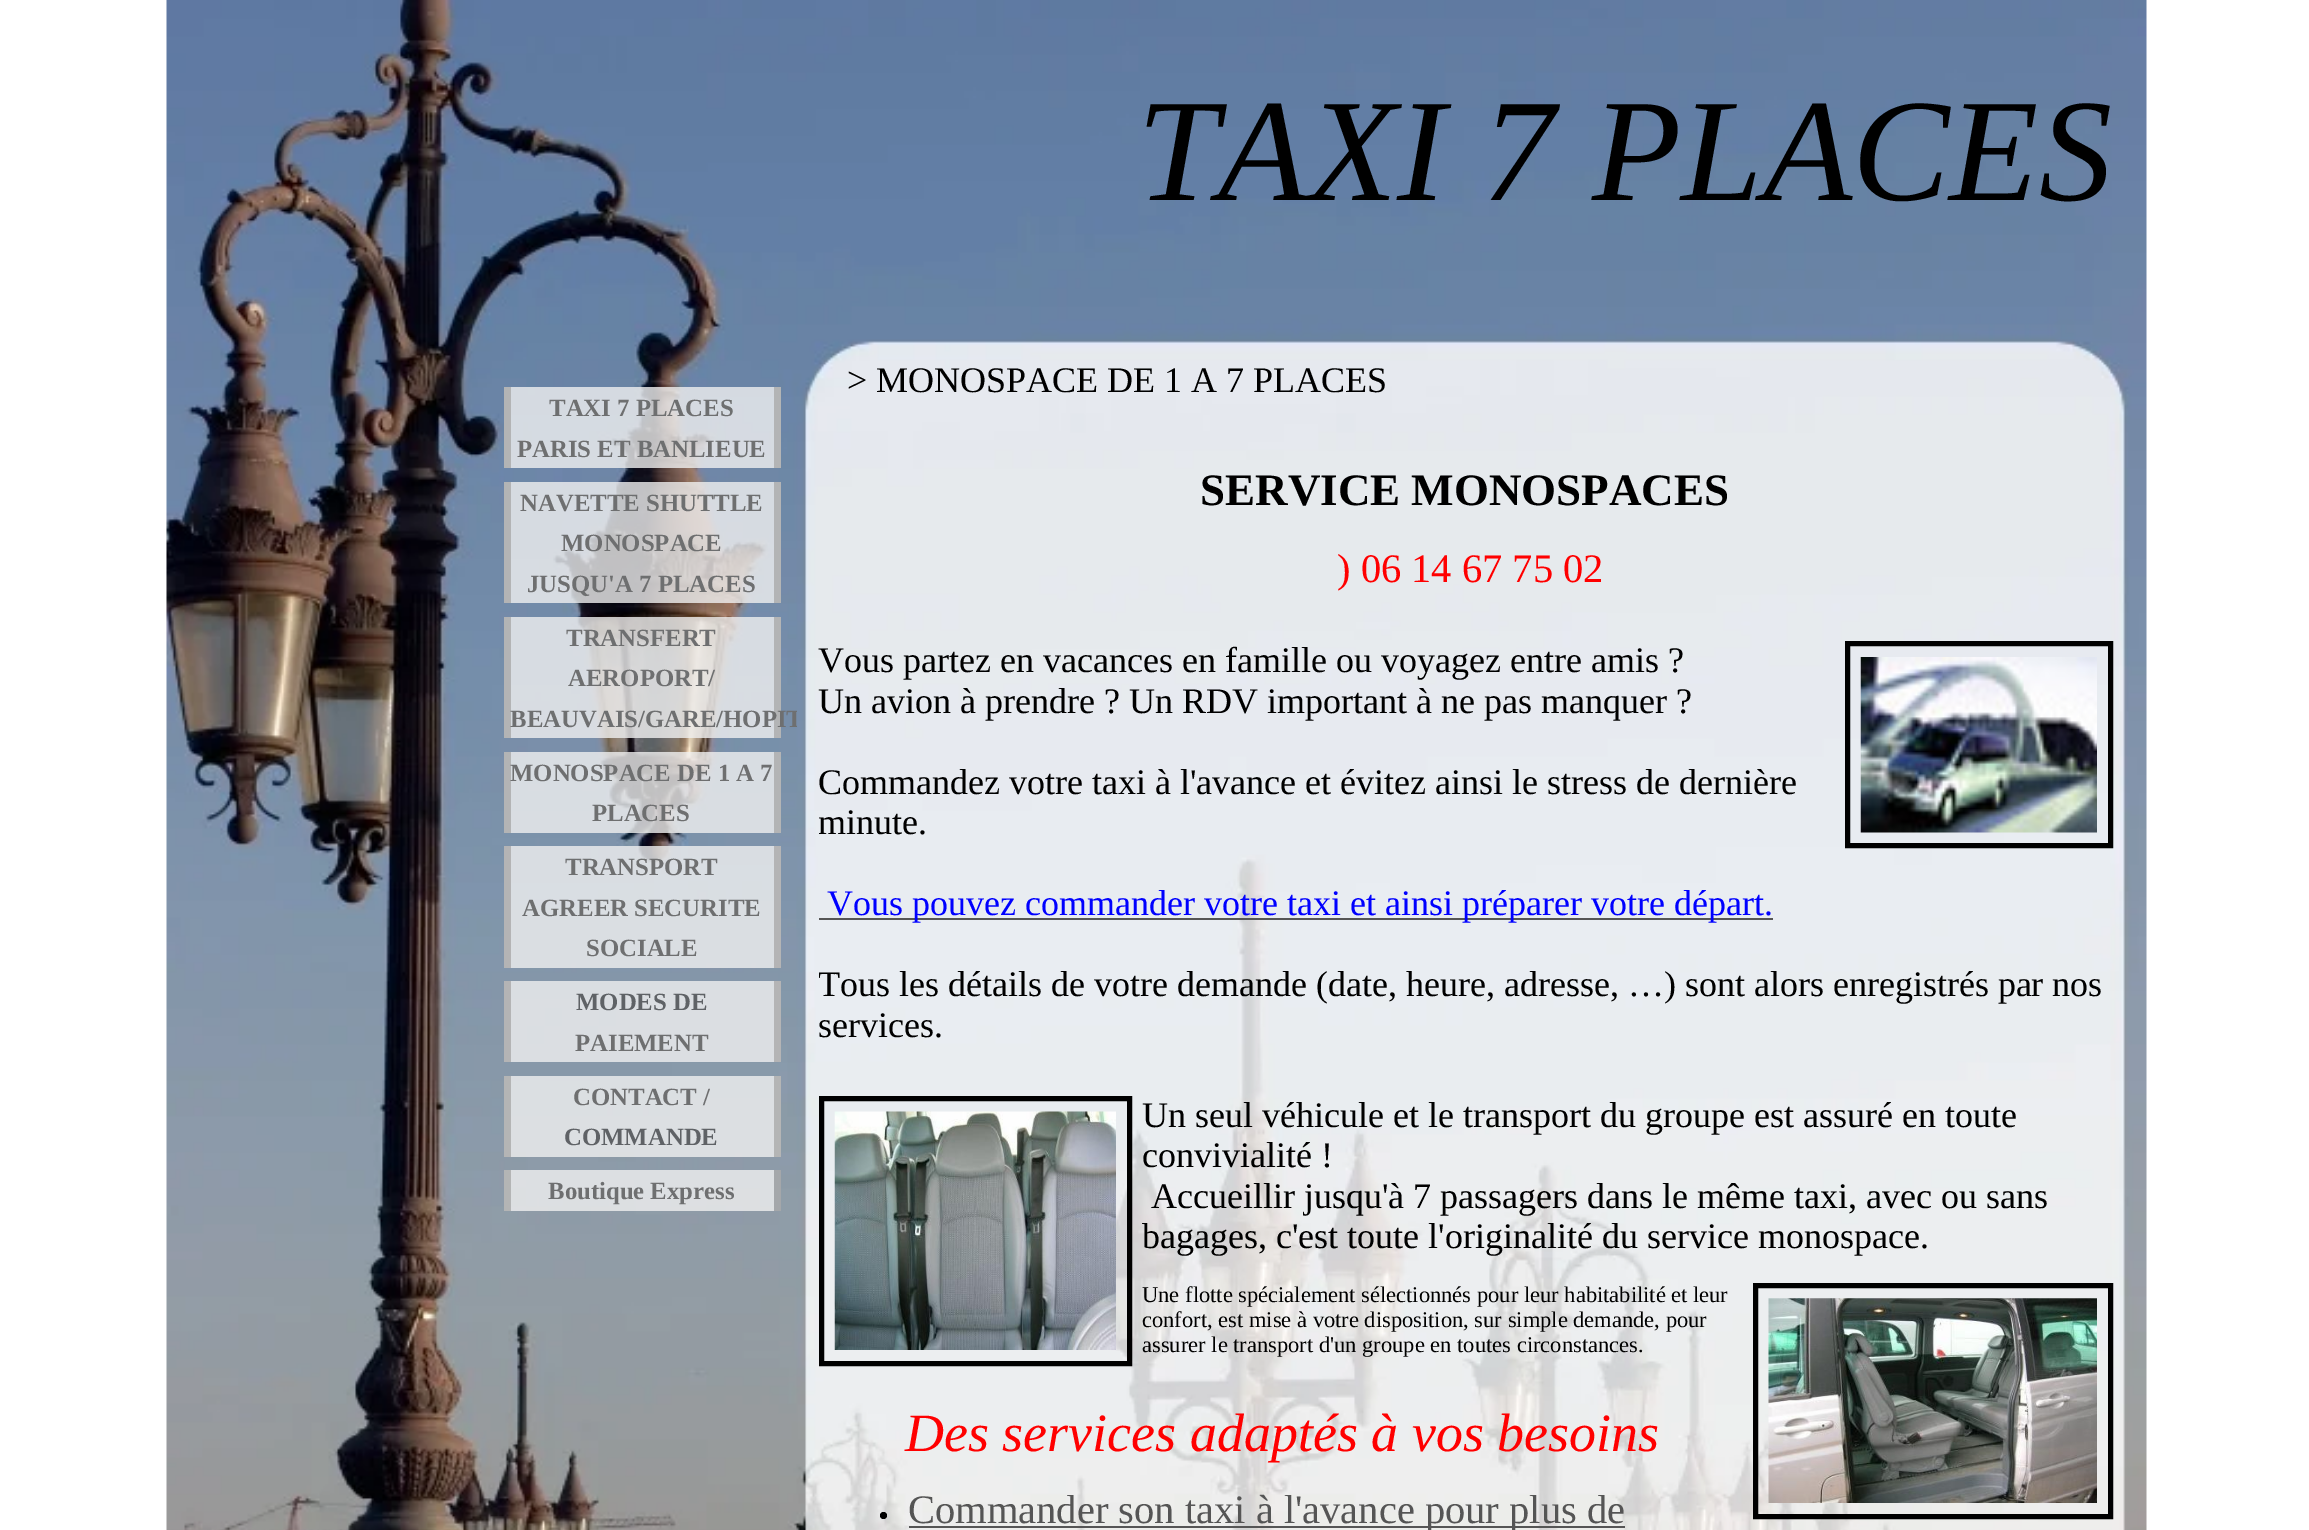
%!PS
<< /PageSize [2309 1530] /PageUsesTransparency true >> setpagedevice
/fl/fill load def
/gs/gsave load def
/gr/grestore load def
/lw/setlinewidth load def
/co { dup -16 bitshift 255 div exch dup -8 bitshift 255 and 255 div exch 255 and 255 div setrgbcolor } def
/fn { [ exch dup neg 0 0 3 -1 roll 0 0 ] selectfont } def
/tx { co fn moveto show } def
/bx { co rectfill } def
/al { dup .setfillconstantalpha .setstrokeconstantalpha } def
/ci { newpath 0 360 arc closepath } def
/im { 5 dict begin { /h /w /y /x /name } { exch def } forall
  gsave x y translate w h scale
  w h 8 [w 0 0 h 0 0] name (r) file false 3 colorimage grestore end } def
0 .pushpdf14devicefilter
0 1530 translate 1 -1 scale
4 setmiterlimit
0 0 2309 1530 16#FFFFFF bx
(media/1.raw) 166 0 1981 1530 im
0.8 al
511 387 263 81 16#F0F0F0 bx
1 al
774 387 7 81 16#B3B4B5 bx
504 387 7 81 16#B3B4B5 bx
0.8 al
511 482 263 121 16#F0F0F0 bx
1 al
774 482 7 121 16#B3B4B5 bx
504 482 7 121 16#B3B4B5 bx
0.8 al
511 617 263 121 16#F0F0F0 bx
1 al
774 617 7 121 16#B3B4B5 bx
504 617 7 121 16#B3B4B5 bx
0.8 al
511 752 263 81 16#F0F0F0 bx
1 al
774 752 7 81 16#B3B4B5 bx
504 752 7 81 16#B3B4B5 bx
0.8 al
511 846 263 122 16#F0F0F0 bx
1 al
774 846 7 122 16#B4B4B5 bx
504 846 7 122 16#B4B4B5 bx
0.8 al
511 981 263 81 16#F0F0F0 bx
1 al
774 981 7 81 16#B4B4B5 bx
504 981 7 81 16#B4B4B5 bx
0.8 al
511 1076 263 81 16#F0F0F0 bx
1 al
774 1076 7 81 16#B4B5B5 bx
504 1076 7 81 16#B4B5B5 bx
0.8 al
511 1170 263 41 16#F0F0F0 bx
1 al
774 1170 7 41 16#A4A7AA bx
504 1170 7 41 16#B4B5B5 bx
16#000000 co
5 lw
1847.5 643.5 263 202 rectstroke
(media/2.raw) 1860 657 237 176 im
819 918 954 2 16#555555 bx
16#000000 co
821.5 1098.5 308 265 rectstroke
(media/3.raw) 834 1111 282 239 im
1755.5 1285.5 355 231 rectstroke
(media/4.raw) 1768 1298 329 205 im
883.5 1515.5 3.5 ci fl
909 1526 716 2 16#555555 bx
(TAXI 7 PLACES) 1137 200 /LiberationSerif-Italic 146.25 16#000000 tx
(> MONOSPACE DE 1 A 7 PLACES) 847 392 /LiberationSerif-Regular 36 16#000000 tx
(TAXI 7 PLACES) 549 416 /LiberationSerif-Bold 24.75 16#6E6F70 tx
(PARIS ET BANLIEUE) 517 457 /LiberationSerif-Bold 24.75 16#6E6F70 tx
(NAVETTE SHUTTLE) 520 511 /LiberationSerif-Bold 24.75 16#6E6F70 tx
(MONOSPACE) 561 551 /LiberationSerif-Bold 24.75 16#6E6F70 tx
(JUSQU'A 7 PLACES) 527 592 /LiberationSerif-Bold 24.75 16#6E6F70 tx
(TRANSFERT) 566 646 /LiberationSerif-Bold 24.75 16#6E6F70 tx
(AEROPORT/) 568 686 /LiberationSerif-Bold 24.75 16#6E6F70 tx
gs
504 0 293 1224 rectclip
(BEAUVAIS/GARE/HOPIT) 510 727 /LiberationSerif-Bold 24.75 16#6E6F70 tx
gr
(MONOSPACE DE 1 A 7) 510 781 /LiberationSerif-Bold 24.75 16#6E6F70 tx
(PLACES) 592 821 /LiberationSerif-Bold 24.75 16#6E6F70 tx
(TRANSPORT) 565 875 /LiberationSerif-Bold 24.75 16#6E6F70 tx
(AGREER SECURITE) 522 916 /LiberationSerif-Bold 24.75 16#6E6F70 tx
(SOCIALE) 586 956 /LiberationSerif-Bold 24.75 16#6E6F70 tx
(MODES DE) 576 1010 /LiberationSerif-Bold 24.75 16#5F6266 tx
(PAIEMENT) 575 1051 /LiberationSerif-Bold 24.75 16#6E6F70 tx
(CONTACT /) 573 1105 /LiberationSerif-Bold 24.75 16#6E6F70 tx
(COMMANDE) 564 1145 /LiberationSerif-Bold 24.75 16#5F6266 tx
(Boutique Express) 548 1199 /LiberationSerif-Bold 24.75 16#6E6F70 tx
(SERVICE MONOSPACES) 1200 505 /LiberationSerif-Bold 45 16#000000 tx
(\) 06 14 67 75 02) 1337 582 /LiberationSerif-Regular 40.5 16#FF0000 tx
(Vous partez en vacances en famille ou voyagez entre amis ?) 818 672 /LiberationSerif-Regular 36 16#000000 tx
(Un avion à prendre ? Un RDV important à ne pas manquer ?) 818 713 /LiberationSerif-Regular 36 16#000000 tx
(Commandez votre taxi à l'avance et évitez ainsi le stress de dernière) 818 794 /LiberationSerif-Regular 36 16#000000 tx
gs
819 434 1294 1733 rectclip
(minute.) 818 834 /LiberationSerif-Regular 36 16#000000 tx
gr
(Vous pouvez commander votre taxi et ainsi préparer votre départ.) 827 915 /LiberationSerif-Regular 36 16#0000FF tx
gs
819 434 1294 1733 rectclip
(Tous les détails de votre demande \(date, heure, adresse, …\) sont alors enregistrés par nos) 818 996 /LiberationSerif-Regular 36 16#000000 tx
gr
(services.) 818 1037 /LiberationSerif-Regular 36 16#000000 tx
(Un seul véhicule et le transport du groupe est assuré en toute) 1142 1127 /LiberationSerif-Regular 36 16#000000 tx
(convivialité !) 1142 1167 /LiberationSerif-Regular 36 16#000000 tx
(Accueillir jusqu'à 7 passagers dans le même taxi, avec ou sans) 1151 1208 /LiberationSerif-Regular 36 16#000000 tx
(bagages, c'est toute l'originalité du service monospace.) 1142 1248 /LiberationSerif-Regular 36 16#000000 tx
(Une flotte spécialement sélectionnés pour leur habitabilité et leur) 1142 1302 /LiberationSerif-Regular 22.5 16#000000 tx
(confort, est mise à votre disposition, sur simple demande, pour) 1142 1327 /LiberationSerif-Regular 22.5 16#000000 tx
(assurer le transport d'un groupe en toutes circonstances.) 1142 1352 /LiberationSerif-Regular 22.5 16#000000 tx
(Des services adaptés à vos besoins) 905 1451 /LiberationSerif-Italic 54 16#FF0000 tx
(Commander son taxi à l'avance pour plus de) 908 1523 /LiberationSerif-Regular 40.5 16#555555 tx
.poppdf14devicefilter showpage
